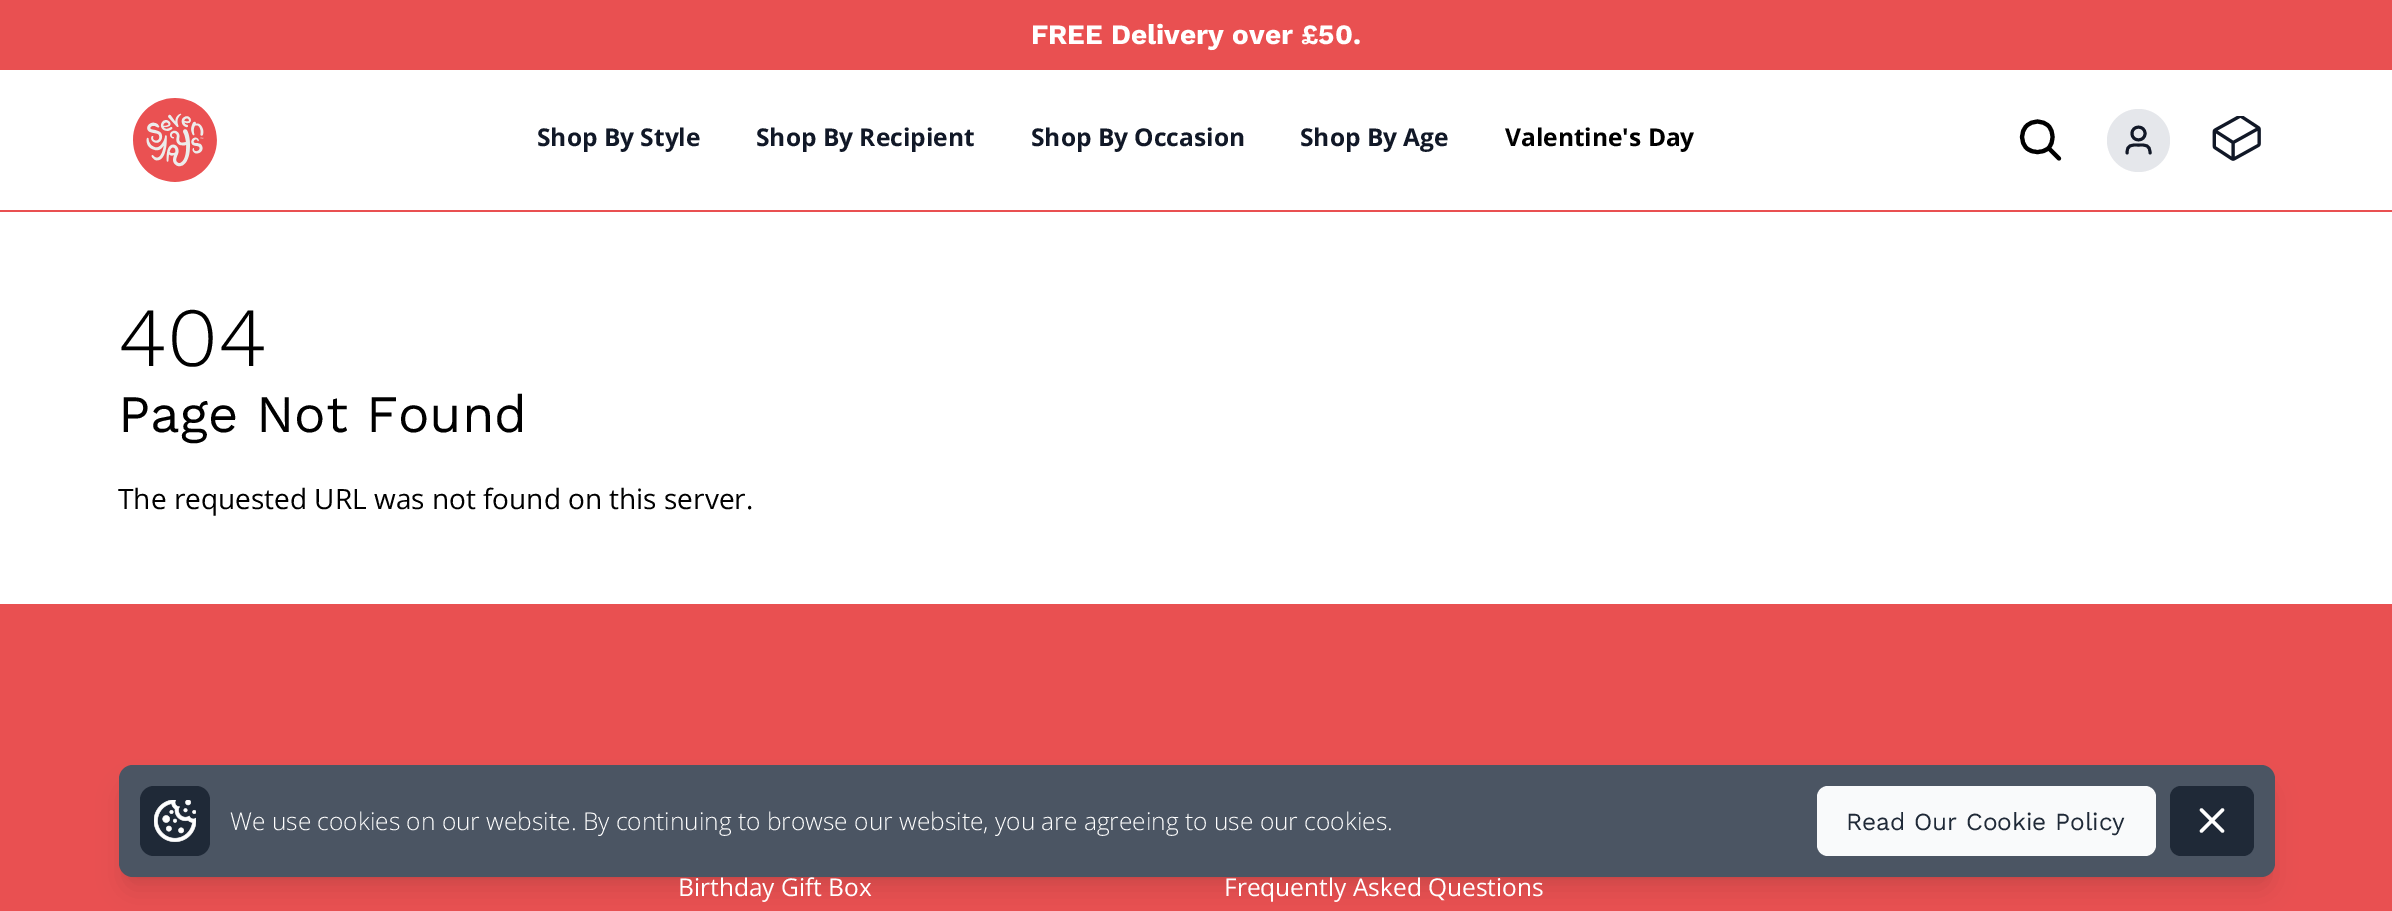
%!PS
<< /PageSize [2392 911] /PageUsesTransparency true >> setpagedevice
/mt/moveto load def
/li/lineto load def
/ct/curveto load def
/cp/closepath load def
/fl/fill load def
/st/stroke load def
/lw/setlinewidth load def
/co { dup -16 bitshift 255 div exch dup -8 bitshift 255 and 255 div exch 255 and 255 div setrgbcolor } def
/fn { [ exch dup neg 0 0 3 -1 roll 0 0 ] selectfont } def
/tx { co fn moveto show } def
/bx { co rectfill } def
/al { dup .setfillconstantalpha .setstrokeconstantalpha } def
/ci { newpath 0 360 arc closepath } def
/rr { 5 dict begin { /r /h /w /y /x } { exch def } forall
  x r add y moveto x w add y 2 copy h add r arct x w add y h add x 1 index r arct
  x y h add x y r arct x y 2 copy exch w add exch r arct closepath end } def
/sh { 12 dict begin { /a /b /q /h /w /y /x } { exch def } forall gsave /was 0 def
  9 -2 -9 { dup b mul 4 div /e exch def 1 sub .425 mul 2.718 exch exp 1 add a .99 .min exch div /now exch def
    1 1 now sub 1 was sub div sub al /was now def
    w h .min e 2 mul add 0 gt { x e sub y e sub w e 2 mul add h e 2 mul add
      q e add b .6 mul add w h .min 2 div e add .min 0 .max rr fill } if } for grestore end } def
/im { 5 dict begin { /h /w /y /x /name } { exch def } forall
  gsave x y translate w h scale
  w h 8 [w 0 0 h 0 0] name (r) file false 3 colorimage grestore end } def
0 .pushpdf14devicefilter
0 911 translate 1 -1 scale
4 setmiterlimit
0 0 2392 911 16#FFFFFF bx
0 0 2392 70 16#E95051 bx
0 210 2392 2 16#E95051 bx
(media/1.raw) 133 98 84 84 im
16#000000 co
4.1 lw
1 setlinecap
1 setlinejoin
2059 158.5 mt 2048.5 148 li 2048.5 148 mt 2054 142 2054 132 2048.5 126 ct 2042.5 120 2032.5 120 2026.5 126 ct 2020.5 132 2020.5 142 2026.5 148 ct 2032.5 153.5 2042.5 153.5 2048.5 148 ct cp st
16#E5E7EB co
2138.5 140.5 31.5 ci fl
16#111827 co
2.9 lw
2150 153 mt 2150 144.5 2145.5 145 2138.5 145 ct 2131.5 145 2127 144.5 2127 153 ct 2145 133.5 mt 2145 142 2132 142 2132 133.5 ct 2132 125 2145 125 2145 133.5 ct cp st
(media/2.raw) 2212 116 49 45 im
0 604 2392 307 16#E95051 bx
16#000000 co
126 779 2142 98 7 5 .1 sh
124 788 2146 101 9 13 .1 sh
16#4B5563 co
119 765 2156 112 14 rr fl
16#1F2937 co
140 786 70 70 14 rr fl
(media/3.raw) 154 800 42 42 im
16#F9FAFB co
1817 786 339 70 11 rr fl
16#1F2937 co
2170 786 84 70 11 rr fl
16#FFFFFF co
3.5 lw
2201.5 831 mt 2222.5 810 li 2201.5 810 mt 2222.5 831 li st
(FREE Delivery over £50.) 1031 44 /WorkSans-Bold 28 16#FFFFFF tx
(Shop By Style) 537 146 /OpenSans-Bold 24.5 16#111827 tx
(Shop By Recipient) 756 146 /OpenSans-Bold 24.5 16#111827 tx
(Shop By Occasion) 1031 146 /OpenSans-Bold 24.5 16#111827 tx
(Shop By Age) 1300 146 /OpenSans-Bold 24.5 16#111827 tx
(Valentine's Day) 1505 146 /OpenSans-Bold 24.5 16#000000 tx
(404) 118 366 /WorkSans-Light 84 16#000000 tx
(Page Not Found) 118 432 /WorkSans-Regular 52.5 16#000000 tx
(The requested URL was not found on this server.) 118 509 /OpenSans-Regular 28 16#000000 tx
(We use cookies on our website. By continuing to browse our website, you are agreeing to use our cookies.) 230 830 /OpenSans-Light 24.5 16#FFFFFF tx
(Read Our Cookie Policy) 1846 830 /WorkSans-Regular 24.5 16#1F2937 tx
(Birthday Gift Box) 678 896 /OpenSans-Regular 24.5 16#FFFFFF tx
(Frequently Asked Questions) 1224 896 /OpenSans-Regular 24.5 16#FFFFFF tx
.poppdf14devicefilter showpage
